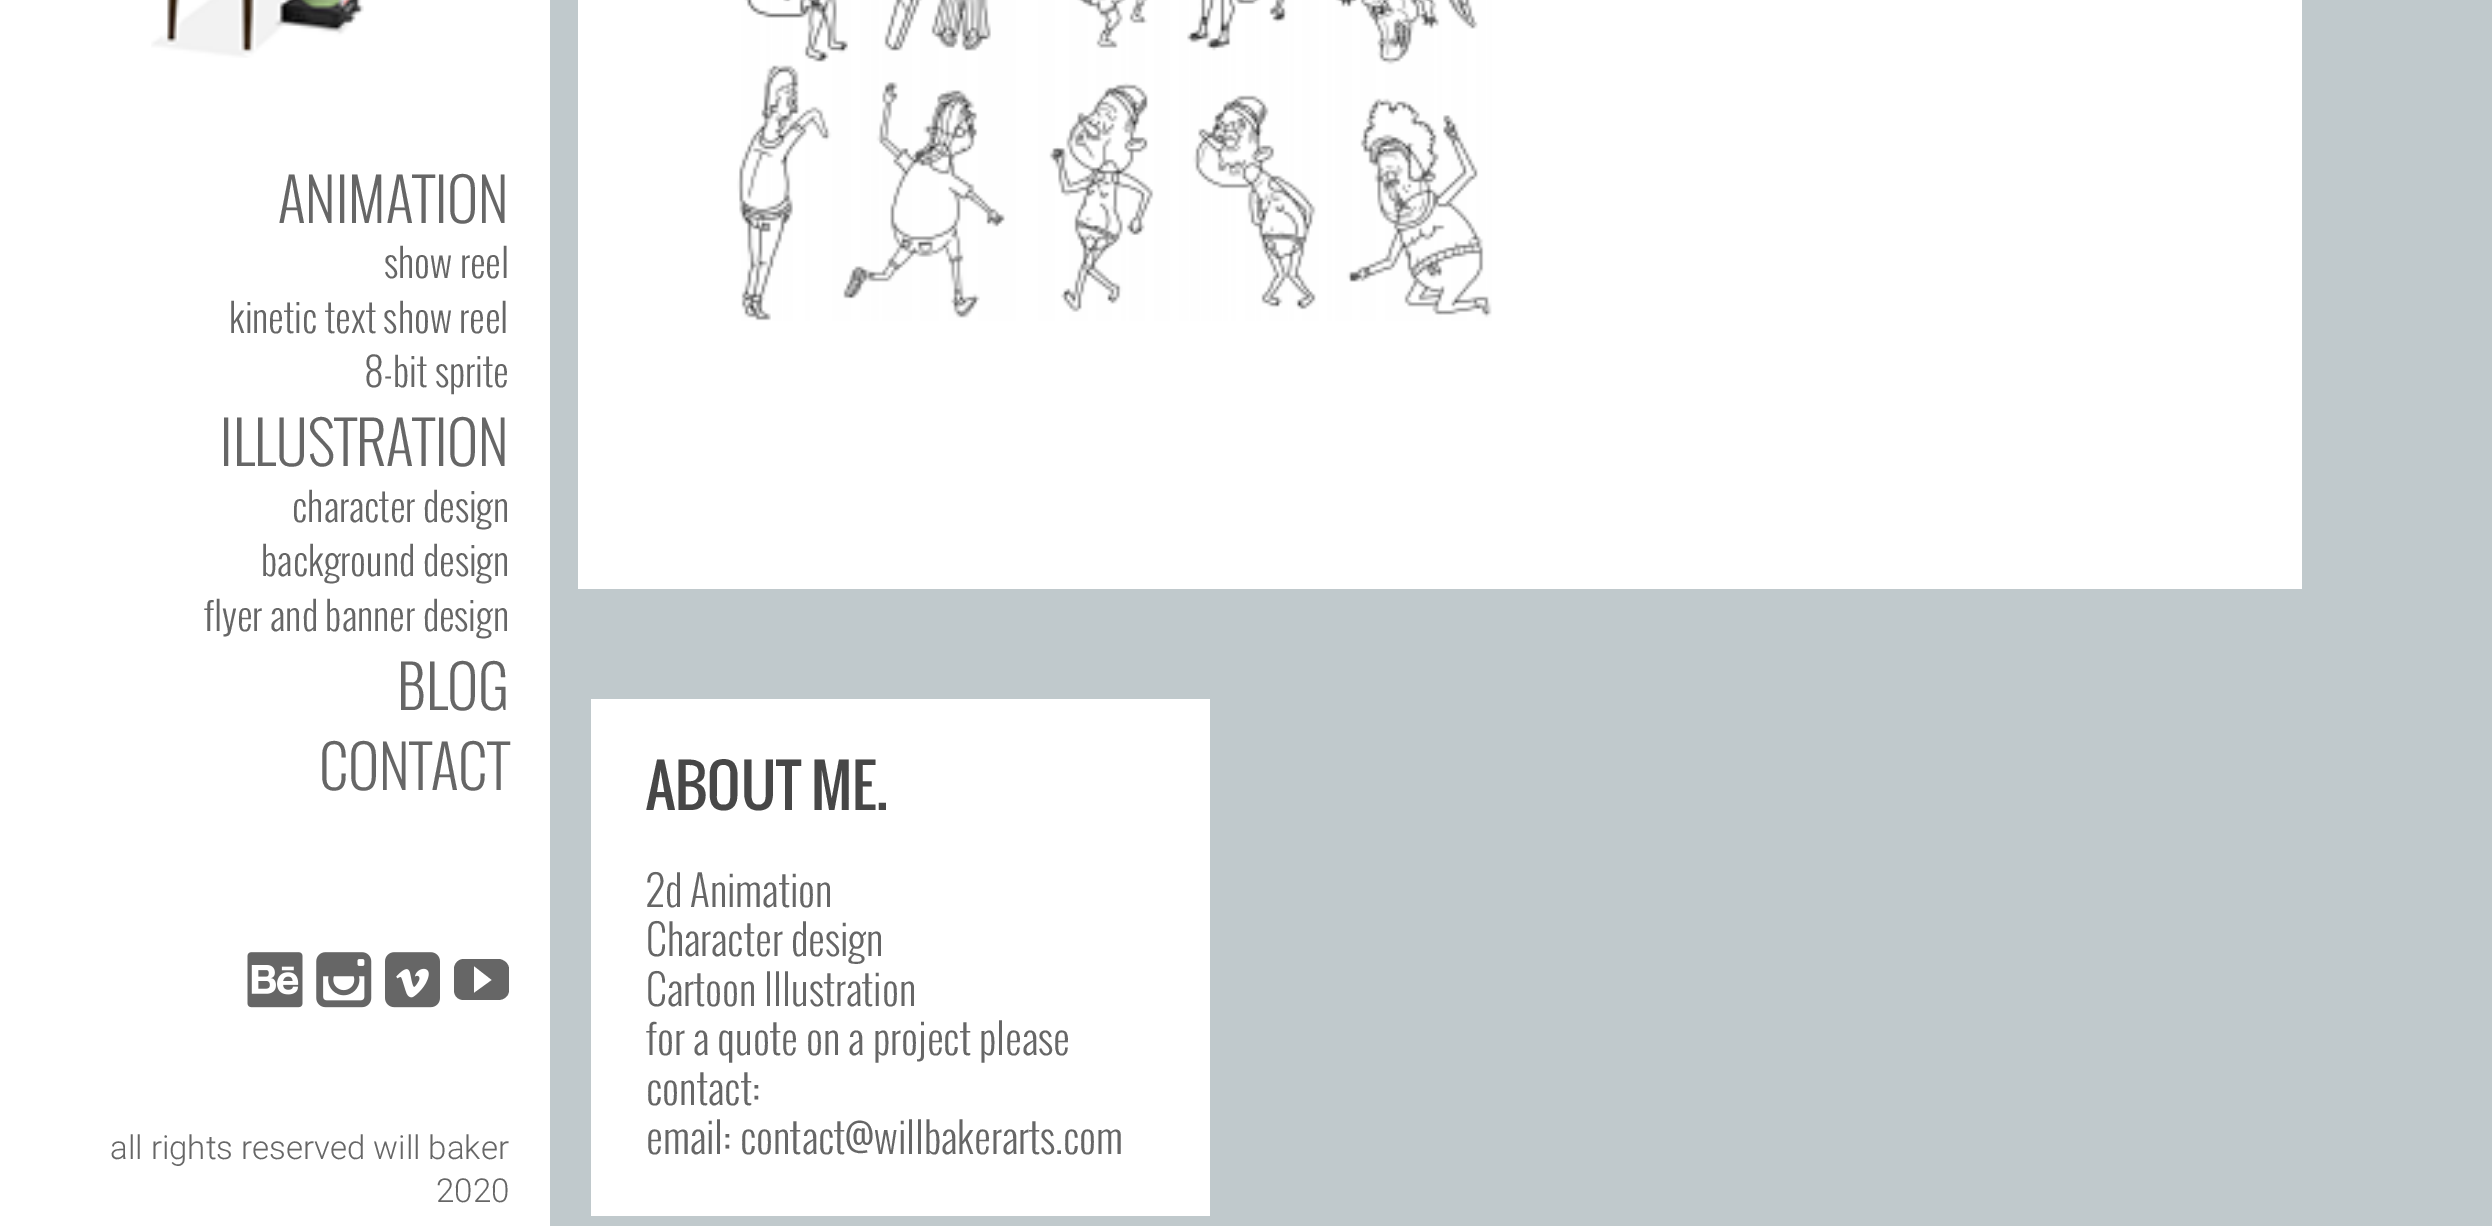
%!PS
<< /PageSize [2492 1226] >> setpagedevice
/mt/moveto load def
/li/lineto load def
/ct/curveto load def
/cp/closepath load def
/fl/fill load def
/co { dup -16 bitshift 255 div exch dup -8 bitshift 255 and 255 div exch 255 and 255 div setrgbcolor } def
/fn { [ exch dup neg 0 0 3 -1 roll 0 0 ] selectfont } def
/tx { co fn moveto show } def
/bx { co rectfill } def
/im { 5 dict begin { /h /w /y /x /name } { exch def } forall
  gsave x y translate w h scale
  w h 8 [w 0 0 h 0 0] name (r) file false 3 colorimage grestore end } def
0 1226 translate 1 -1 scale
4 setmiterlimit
0 0 2492 1226 16#C0C9CC bx
0 0 550 1226 16#FFFFFF bx
578 0 1724 589 16#FFFFFF bx
(media/1.raw) 737 0 755 321 im
(media/2.raw) 151 0 213 58 im
(media/3.raw) 247 952 56 56 im
(media/4.raw) 316 952 56 56 im
(media/5.raw) 385 952 55 56 im
16#666666 co
498 959 mt 464 959 li 458 959 454 964 454 969 ct 454 990 li 454 996 458 1000 464 1000 ct 498 1000 li 504 1000 509 996 509 990 ct 509 969 li 509 964 504 959 498 959 ct cp 474 993 mt 474 966 li 492 980 li cp fl
591 699 619 517 16#FFFFFF bx
(ANIMATION) 278 223 /Oswald-Light 57.75 16#666666 tx
(show reel) 384 278 /Oswald-Light 38.5 16#666666 tx
(kinetic text show reel) 229 333 /Oswald-Light 38.5 16#666666 tx
(8-bit sprite) 365 387 /Oswald-Light 38.5 16#666666 tx
(ILLUSTRATION) 220 466 /Oswald-Light 57.75 16#666666 tx
(character design) 292 522 /Oswald-Light 38.5 16#666666 tx
(background design) 261 576 /Oswald-Light 38.5 16#666666 tx
(flyer and banner design) 204 631 /Oswald-Light 38.5 16#666666 tx
(BLOG) 397 710 /Oswald-Light 57.75 16#666666 tx
(CONTACT) 319 790 /Oswald-Light 57.75 16#666666 tx
(all rights reserved will baker) 110 1159 /Roboto-Light 33 16#666666 tx
(2020) 436 1202 /Roboto-Light 33 16#666666 tx
(ABOUT ME.) 646 810 /Oswald-Regular 57.75 16#474747 tx
(2d Animation) 646 907 /Oswald-Light 41.25 16#666666 tx
(Character design) 646 956 /Oswald-Light 41.25 16#666666 tx
(Cartoon Illustration) 646 1006 /Oswald-Light 41.25 16#666666 tx
(for a quote on a project please) 646 1055 /Oswald-Light 41.25 16#666666 tx
(contact:) 646 1105 /Oswald-Light 41.25 16#666666 tx
(email: contact@willbakerarts.com) 646 1154 /Oswald-Light 41.25 16#666666 tx
showpage
